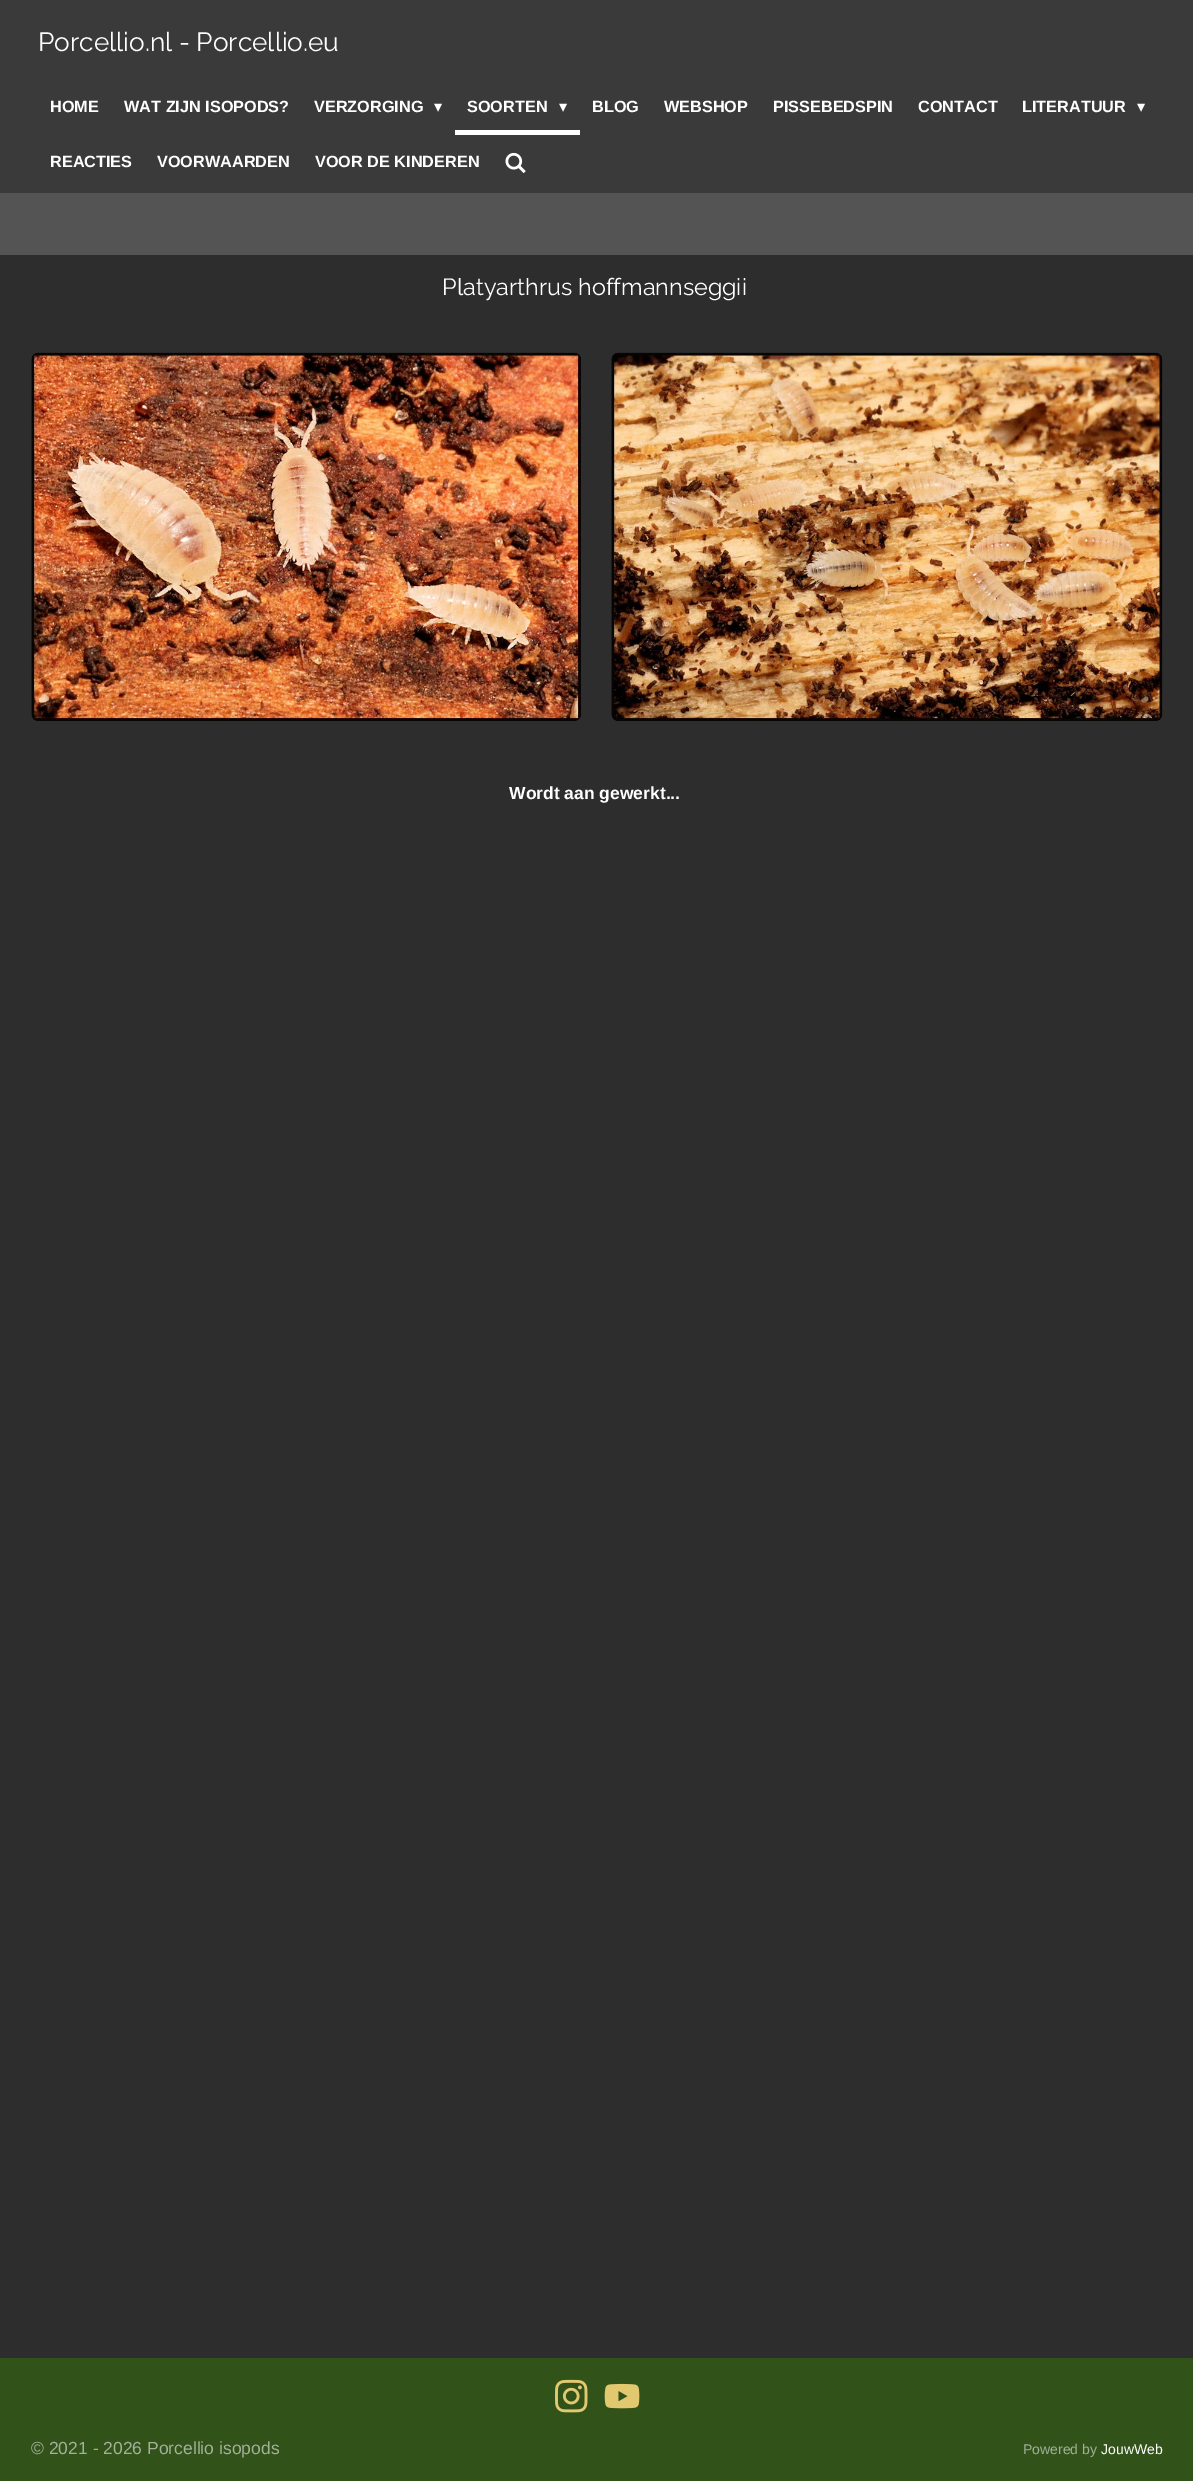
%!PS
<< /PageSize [1193 2481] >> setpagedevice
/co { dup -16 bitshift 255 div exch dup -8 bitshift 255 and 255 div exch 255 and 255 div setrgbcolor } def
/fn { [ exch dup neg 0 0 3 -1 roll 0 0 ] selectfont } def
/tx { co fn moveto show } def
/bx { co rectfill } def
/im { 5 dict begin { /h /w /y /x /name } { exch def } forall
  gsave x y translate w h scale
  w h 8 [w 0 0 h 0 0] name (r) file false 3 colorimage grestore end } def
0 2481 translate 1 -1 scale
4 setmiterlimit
0 0 1193 2481 16#3A3A3A bx
455 130 125 5 16#FFFFFF bx
(media/1.raw) 505 152 21 22 im
0 193 1193 62 16#545454 bx
0 255 1193 2103 16#2D2D2D bx
(media/2.raw) 31 352 550 369 im
(media/3.raw) 611 352 552 369 im
0 2358 1193 123 16#315219 bx
(media/4.raw) 555 2379 33 34 im
(media/5.raw) 604 2383 36 26 im
(Porcellio.nl - Porcellio.eu) 38 51 /Raleway-Regular 26.25 16#FFFFFF tx
(HOME) 50 112 /LiberationSans-Bold 16.25 16#FFFFFF tx
(WAT ZIJN ISOPODS?) 124 112 /LiberationSans-Bold 16.25 16#FFFFFF tx
(VERZORGING) 314 112 /LiberationSans-Bold 16.25 16#FFFFFF tx
(▾) 434 112 /DejaVuSans-Regular 16.25 16#FFFFFF tx
(SOORTEN) 467 112 /LiberationSans-Bold 16.25 16#FFFFFF tx
(▾) 559 112 /DejaVuSans-Regular 16.25 16#FFFFFF tx
(BLOG) 592 112 /LiberationSans-Bold 16.25 16#FFFFFF tx
(WEBSHOP) 664 112 /LiberationSans-Bold 16.25 16#FFFFFF tx
(PISSEBEDSPIN) 773 112 /LiberationSans-Bold 16.25 16#FFFFFF tx
(CONTACT) 918 112 /LiberationSans-Bold 16.25 16#FFFFFF tx
(LITERATUUR) 1022 112 /LiberationSans-Bold 16.25 16#FFFFFF tx
(▾) 1137 112 /DejaVuSans-Regular 16.25 16#FFFFFF tx
(REACTIES) 50 167 /LiberationSans-Bold 16.25 16#FFFFFF tx
(VOORWAARDEN) 157 167 /LiberationSans-Bold 16.25 16#FFFFFF tx
(VOOR DE KINDEREN) 315 167 /LiberationSans-Bold 16.25 16#FFFFFF tx
(Platyarthrus hoffmannseggii) 442 295 /Raleway-Regular 23.4 16#FFFFFF tx
(Wordt aan gewerkt...) 509 799 /LiberationSans-Bold 17.5 16#FFFFFF tx
(© 2021 - 2026 Porcellio isopods) 31 2454 /LiberationSans-Regular 17.5 16#A2B198 tx
(Powered by) 1023 2454 /LiberationSans-Regular 14 16#A2B198 tx
(JouwWeb) 1101 2454 /LiberationSans-Regular 14 16#FFFFFF tx
showpage
